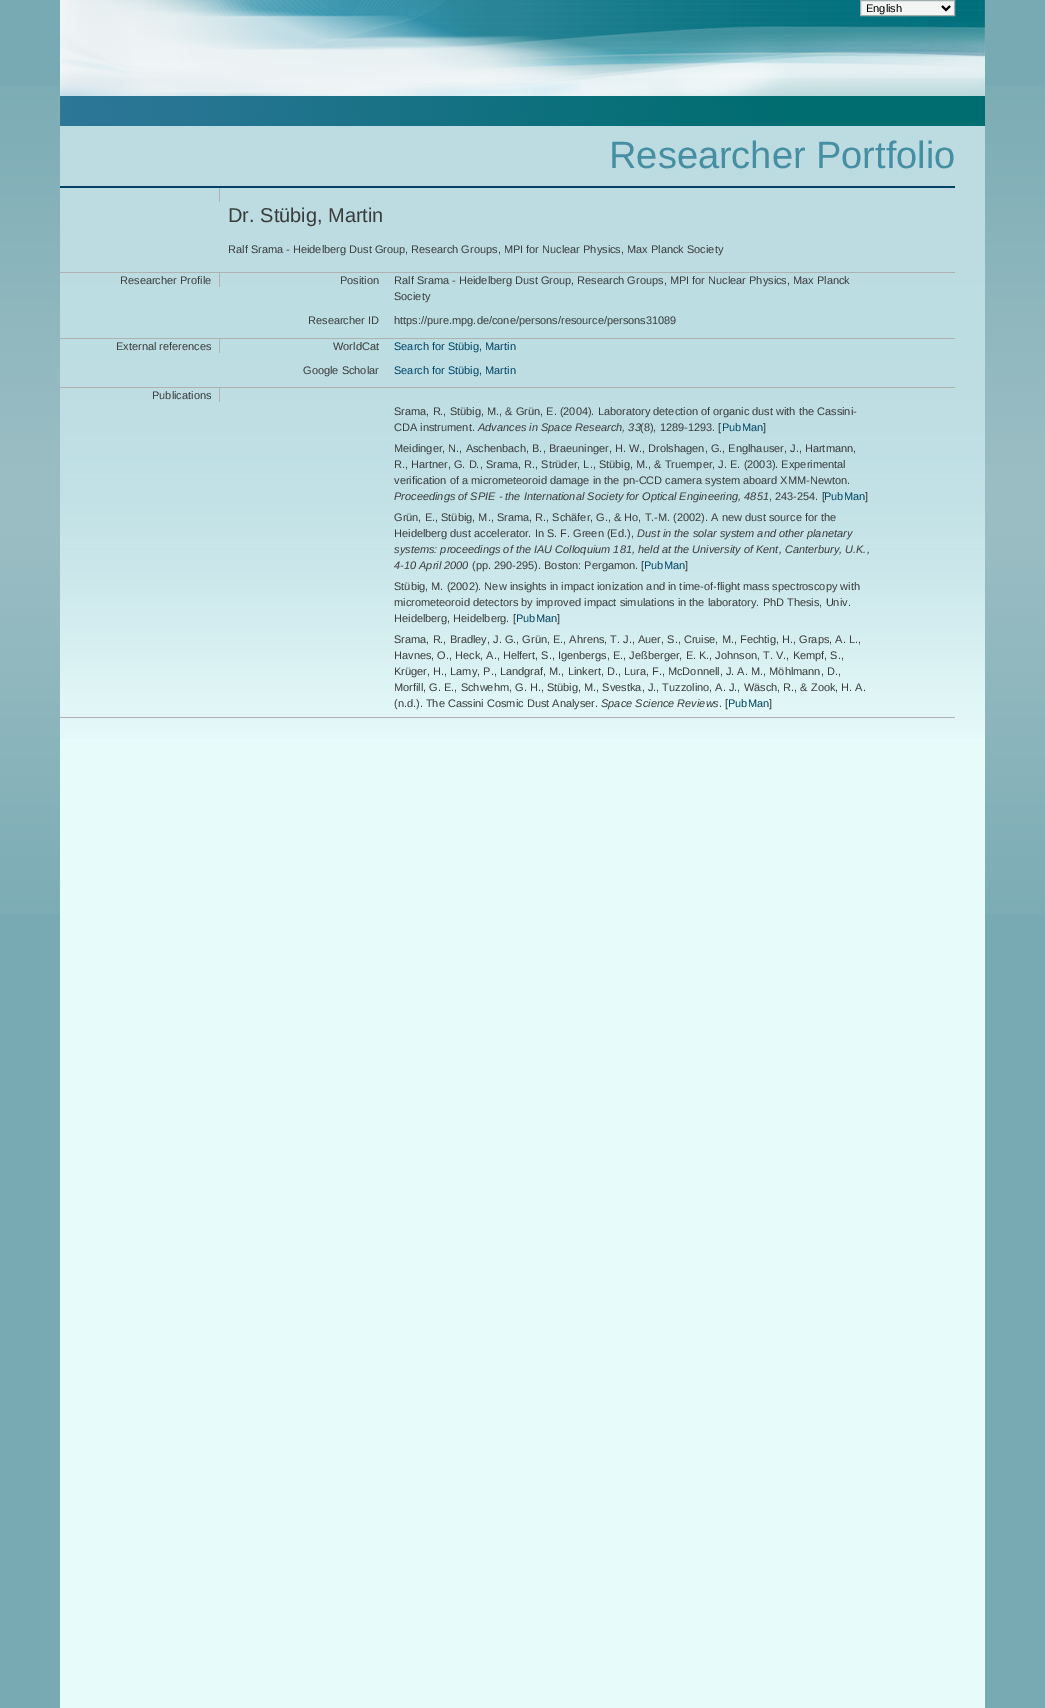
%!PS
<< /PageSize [1045 1708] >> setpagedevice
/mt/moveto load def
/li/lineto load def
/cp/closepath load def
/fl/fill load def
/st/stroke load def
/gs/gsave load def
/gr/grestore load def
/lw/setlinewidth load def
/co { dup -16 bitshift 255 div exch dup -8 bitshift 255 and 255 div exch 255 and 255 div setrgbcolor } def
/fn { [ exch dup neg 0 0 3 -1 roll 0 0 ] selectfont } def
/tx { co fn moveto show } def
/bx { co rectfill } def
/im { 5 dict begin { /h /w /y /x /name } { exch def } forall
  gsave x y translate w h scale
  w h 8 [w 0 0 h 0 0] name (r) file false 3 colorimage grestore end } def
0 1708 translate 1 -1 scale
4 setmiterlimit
0 0 1045 1708 16#78AAB3 bx
(media/1.raw) 0 86 1045 828 im
60 0 925 1708 16#E8FBFB bx
(media/2.raw) 60 0 925 738 im
16#F3F5F5 co
860.5 .5 mt 954.5 .5 li 954.5 15.5 li 860.5 15.5 li cp gs fl gr
16#9FAFAE co
st
16#000000 co
2 lw
942 6 mt 946 10 li 950 6 li st
60 186 895 2 16#004465 bx
60 717 895 1 16#B0B1B1 bx
219 188 1 14 16#B0B1B1 bx
60 272 895 1 16#B0B1B1 bx
219 273 1 14 16#B0B1B1 bx
60 338 895 1 16#B0B1B1 bx
219 339 1 14 16#B0B1B1 bx
60 387 895 1 16#B0B1B1 bx
219 388 1 14 16#B0B1B1 bx
(English) 866 12 /LiberationSans-Regular 11 16#000000 tx
(Researcher Portfolio) 609 168 /LiberationSans-Regular 38 16#468EA2 tx
(Dr. Stübig, Martin) 228 222 /LiberationSans-Regular 20 16#3A3B3B tx
(Ralf Srama - Heidelberg Dust Group, Research Groups, MPI for Nuclear Physics, Max Planck Society) 228 253 /LiberationSans-Regular 11 16#3A3B3B tx
(Researcher Profile) 120 284 /LiberationSans-Regular 11 16#3A3B3B tx
(Position) 340 284 /LiberationSans-Regular 11 16#3A3B3B tx
(Ralf Srama - Heidelberg Dust Group, Research Groups, MPI for Nuclear Physics, Max Planck) 394 284 /LiberationSans-Regular 11 16#3A3B3B tx
(Society) 394 300 /LiberationSans-Regular 11 16#3A3B3B tx
(Researcher ID) 308 324 /LiberationSans-Regular 11 16#3A3B3B tx
(https://pure.mpg.de/cone/persons/resource/persons31089) 394 324 /LiberationSans-Regular 11 16#3A3B3B tx
(External references) 116 350 /LiberationSans-Regular 11 16#3A3B3B tx
(WorldCat) 333 350 /LiberationSans-Regular 11 16#3A3B3B tx
(Search for Stübig, Martin) 394 350 /LiberationSans-Regular 11 16#004465 tx
(Google Scholar) 303 374 /LiberationSans-Regular 11 16#3A3B3B tx
(Search for Stübig, Martin) 394 374 /LiberationSans-Regular 11 16#004465 tx
(Publications) 152 399 /LiberationSans-Regular 11 16#3A3B3B tx
(Srama, R., Stübig, M., & Grün, E. \(2004\). Laboratory detection of organic dust with the Cassini-) 394 415 /LiberationSans-Regular 11 16#3A3B3B tx
(CDA instrument.) 394 431 /LiberationSans-Regular 11 16#3A3B3B tx
(Advances in Space Research, 33) 478 431 /LiberationSans-Italic 11 16#3A3B3B tx
(\(8\), 1289-1293. [) 640 431 /LiberationSans-Regular 11 16#3A3B3B tx
(PubMan) 722 431 /LiberationSans-Regular 11 16#004465 tx
(]) 763 431 /LiberationSans-Regular 11 16#3A3B3B tx
(Meidinger, N., Aschenbach, B., Braeuninger, H. W., Drolshagen, G., Englhauser, J., Hartmann,) 394 452 /LiberationSans-Regular 11 16#3A3B3B tx
(R., Hartner, G. D., Srama, R., Strüder, L., Stübig, M., & Truemper, J. E. \(2003\). Experimental) 394 468 /LiberationSans-Regular 11 16#3A3B3B tx
(verification of a micrometeoroid damage in the pn-CCD camera system aboard XMM-Newton.) 394 484 /LiberationSans-Regular 11 16#3A3B3B tx
(Proceedings of SPIE - the International Society for Optical Engineering, 4851) 394 500 /LiberationSans-Italic 11 16#3A3B3B tx
(, 243-254. [) 769 500 /LiberationSans-Regular 11 16#3A3B3B tx
(PubMan) 824 500 /LiberationSans-Regular 11 16#004465 tx
(]) 865 500 /LiberationSans-Regular 11 16#3A3B3B tx
(Grün, E., Stübig, M., Srama, R., Schäfer, G., & Ho, T.-M. \(2002\). A new dust source for the) 394 521 /LiberationSans-Regular 11 16#3A3B3B tx
(Heidelberg dust accelerator. In S. F. Green \(Ed.\),) 394 537 /LiberationSans-Regular 11 16#3A3B3B tx
(Dust in the solar system and other planetary) 637 537 /LiberationSans-Italic 11 16#3A3B3B tx
(systems: proceedings of the IAU Colloquium 181, held at the University of Kent, Canterbury, U.K.,) 394 553 /LiberationSans-Italic 11 16#3A3B3B tx
(4-10 April 2000) 394 569 /LiberationSans-Italic 11 16#3A3B3B tx
(\(pp. 290-295\). Boston: Pergamon. [) 472 569 /LiberationSans-Regular 11 16#3A3B3B tx
(PubMan) 644 569 /LiberationSans-Regular 11 16#004465 tx
(]) 685 569 /LiberationSans-Regular 11 16#3A3B3B tx
(Stübig, M. \(2002\). New insights in impact ionization and in time-of-flight mass spectroscopy with) 394 590 /LiberationSans-Regular 11 16#3A3B3B tx
(micrometeoroid detectors by improved impact simulations in the laboratory. PhD Thesis, Univ.) 394 606 /LiberationSans-Regular 11 16#3A3B3B tx
(Heidelberg, Heidelberg. [) 394 622 /LiberationSans-Regular 11 16#3A3B3B tx
(PubMan) 516 622 /LiberationSans-Regular 11 16#004465 tx
(]) 557 622 /LiberationSans-Regular 11 16#3A3B3B tx
(Srama, R., Bradley, J. G., Grün, E., Ahrens, T. J., Auer, S., Cruise, M., Fechtig, H., Graps, A. L.,) 394 643 /LiberationSans-Regular 11 16#3A3B3B tx
(Havnes, O., Heck, A., Helfert, S., Igenbergs, E., Jeßberger, E. K., Johnson, T. V., Kempf, S.,) 394 659 /LiberationSans-Regular 11 16#3A3B3B tx
(Krüger, H., Lamy, P., Landgraf, M., Linkert, D., Lura, F., McDonnell, J. A. M., Möhlmann, D.,) 394 675 /LiberationSans-Regular 11 16#3A3B3B tx
(Morfill, G. E., Schwehm, G. H., Stübig, M., Svestka, J., Tuzzolino, A. J., Wäsch, R., & Zook, H. A.) 394 691 /LiberationSans-Regular 11 16#3A3B3B tx
(\(n.d.\). The Cassini Cosmic Dust Analyser.) 394 707 /LiberationSans-Regular 11 16#3A3B3B tx
(Space Science Reviews) 601 707 /LiberationSans-Italic 11 16#3A3B3B tx
(. [) 719 707 /LiberationSans-Regular 11 16#3A3B3B tx
(PubMan) 728 707 /LiberationSans-Regular 11 16#004465 tx
(]) 769 707 /LiberationSans-Regular 11 16#3A3B3B tx
showpage
